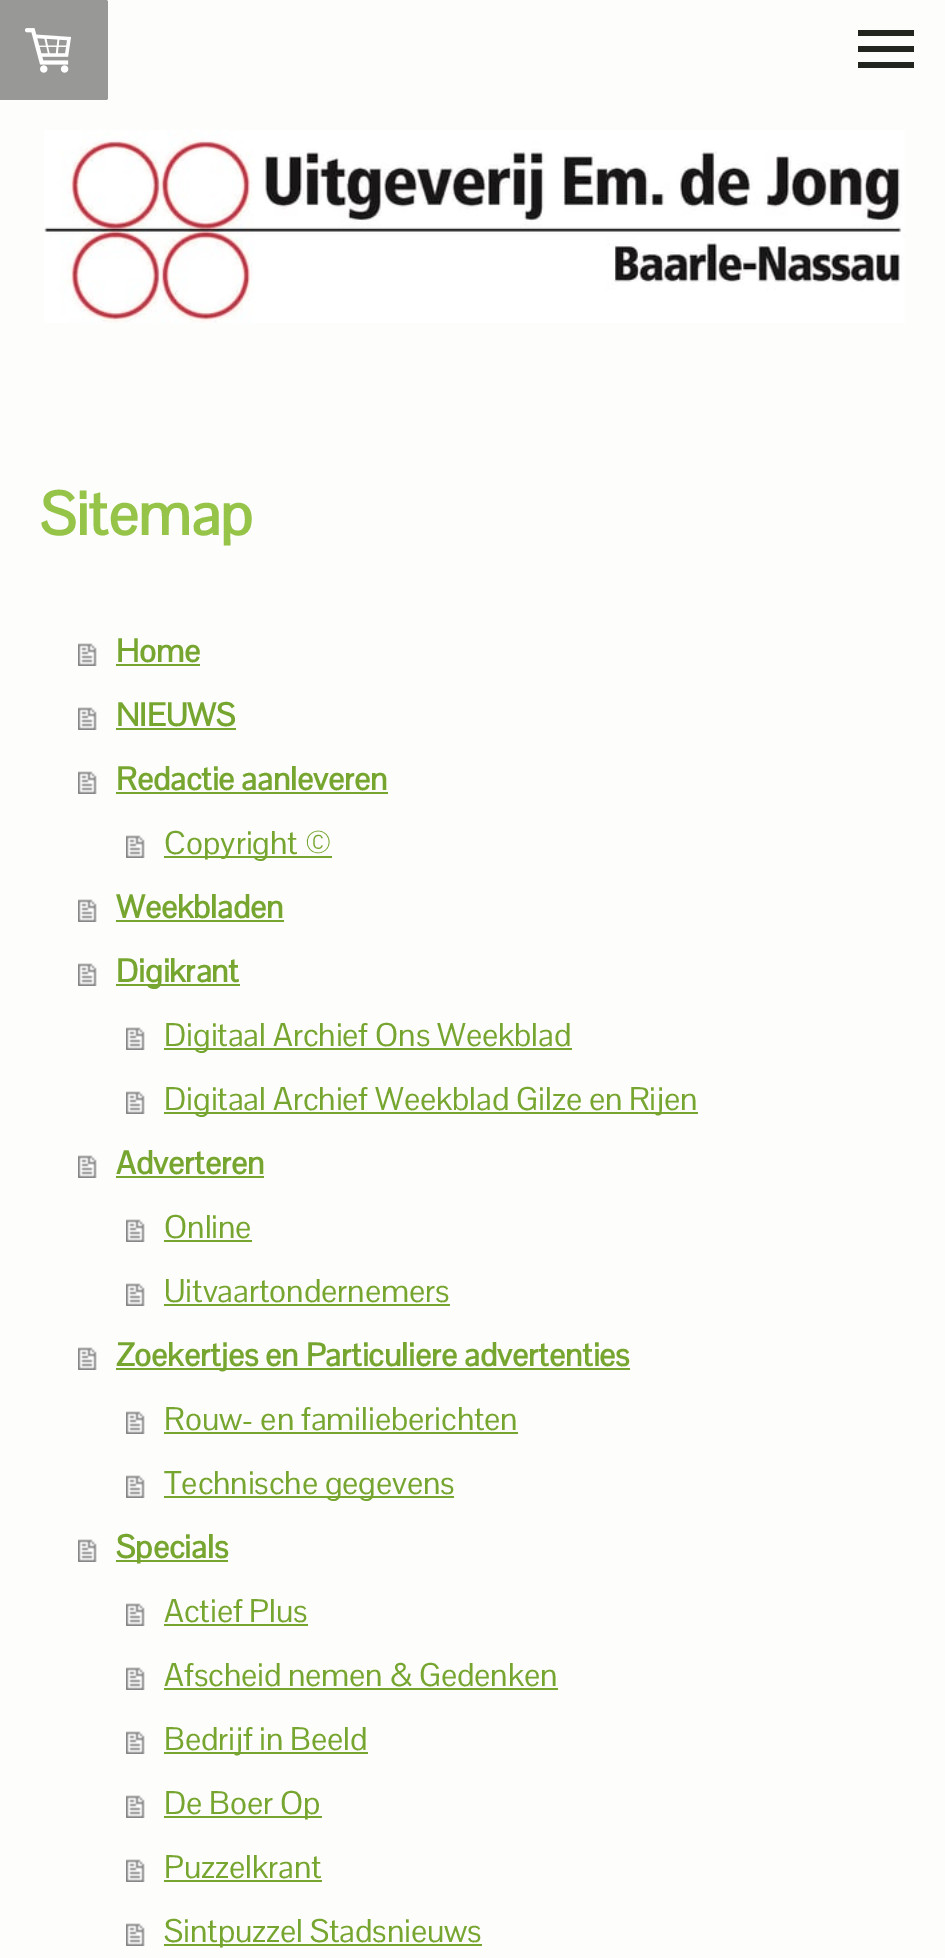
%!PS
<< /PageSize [945 1958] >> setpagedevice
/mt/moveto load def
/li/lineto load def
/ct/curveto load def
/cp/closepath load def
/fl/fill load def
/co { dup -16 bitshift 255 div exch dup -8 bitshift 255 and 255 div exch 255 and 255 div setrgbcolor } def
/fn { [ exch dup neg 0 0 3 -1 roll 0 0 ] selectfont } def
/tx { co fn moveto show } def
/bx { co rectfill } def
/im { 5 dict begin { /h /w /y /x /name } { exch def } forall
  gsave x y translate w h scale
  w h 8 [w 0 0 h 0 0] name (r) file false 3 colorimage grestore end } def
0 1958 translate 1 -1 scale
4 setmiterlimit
0 0 945 1958 16#FDFDFC bx
16#989897 co
0 0 mt 106 0 li 107 0 108 1 108 2 ct 108 98 li 108 99 107 100 106 100 ct 0 100 li cp fl
(media/1.raw) 25 28 46 45 im
858 46 56 6 16#22251E bx
858 30 56 6 16#22251E bx
858 62 56 6 16#22251E bx
(media/2.raw) 44 130 861 193 im
(media/3.raw) 78 643 19 23 im
116 664 84 2 16#77A630 bx
(media/3.raw) 78 707 19 23 im
116 728 120 2 16#77A630 bx
(media/3.raw) 78 771 19 23 im
116 792 272 2 16#77A630 bx
(media/3.raw) 126 835 19 23 im
164 856 168 2 16#77A630 bx
(media/3.raw) 78 899 19 23 im
116 920 168 2 16#77A630 bx
(media/3.raw) 78 963 19 23 im
116 984 124 2 16#77A630 bx
(media/3.raw) 126 1027 19 23 im
164 1048 408 2 16#77A630 bx
(media/3.raw) 126 1091 19 23 im
164 1112 534 2 16#77A630 bx
(media/3.raw) 78 1155 19 23 im
116 1176 148 2 16#77A630 bx
(media/3.raw) 126 1219 19 23 im
164 1240 88 2 16#77A630 bx
(media/3.raw) 126 1283 19 23 im
164 1304 286 2 16#77A630 bx
(media/3.raw) 78 1347 19 23 im
116 1368 514 2 16#77A630 bx
(media/3.raw) 126 1411 19 23 im
164 1432 354 2 16#77A630 bx
(media/3.raw) 126 1475 19 23 im
164 1496 290 2 16#77A630 bx
(media/3.raw) 78 1539 19 23 im
116 1560 112 2 16#77A630 bx
(media/3.raw) 126 1603 19 23 im
164 1624 144 2 16#77A630 bx
(media/3.raw) 126 1667 19 23 im
164 1688 394 2 16#77A630 bx
(media/3.raw) 126 1731 19 23 im
164 1752 204 2 16#77A630 bx
(media/3.raw) 126 1795 19 23 im
164 1816 158 2 16#77A630 bx
(media/3.raw) 126 1859 19 23 im
164 1880 158 2 16#77A630 bx
(media/3.raw) 126 1923 19 23 im
164 1944 318 2 16#77A630 bx
(Sitemap) 40 535 /PontanoSans-Bold 60 16#96C448 tx
(Home) 116 662 /PontanoSans-Bold 32 16#77A630 tx
(NIEUWS) 116 726 /PontanoSans-Bold 32 16#77A630 tx
(Redactie aanleveren) 116 790 /PontanoSans-Bold 32 16#77A630 tx
(Copyright ©) 164 854 /PontanoSans-Regular 32 16#77A630 tx
(Weekbladen) 116 918 /PontanoSans-Bold 32 16#77A630 tx
(Digikrant) 116 982 /PontanoSans-Bold 32 16#77A630 tx
(Digitaal Archief Ons Weekblad) 164 1046 /PontanoSans-Regular 32 16#77A630 tx
(Digitaal Archief Weekblad Gilze en Rijen) 164 1110 /PontanoSans-Regular 32 16#77A630 tx
(Adverteren) 116 1174 /PontanoSans-Bold 32 16#77A630 tx
(Online) 164 1238 /PontanoSans-Regular 32 16#77A630 tx
(Uitvaartondernemers) 164 1302 /PontanoSans-Regular 32 16#77A630 tx
(Zoekertjes en Particuliere advertenties) 116 1366 /PontanoSans-Bold 32 16#77A630 tx
(Rouw- en familieberichten) 164 1430 /PontanoSans-Regular 32 16#77A630 tx
(Technische gegevens) 164 1494 /PontanoSans-Regular 32 16#77A630 tx
(Specials) 116 1558 /PontanoSans-Bold 32 16#77A630 tx
(Actief Plus) 164 1622 /PontanoSans-Regular 32 16#77A630 tx
(Afscheid nemen & Gedenken) 164 1686 /PontanoSans-Regular 32 16#77A630 tx
(Bedrijf in Beeld) 164 1750 /PontanoSans-Regular 32 16#77A630 tx
(De Boer Op) 164 1814 /PontanoSans-Regular 32 16#77A630 tx
(Puzzelkrant) 164 1878 /PontanoSans-Regular 32 16#77A630 tx
(Sintpuzzel Stadsnieuws) 164 1942 /PontanoSans-Regular 32 16#77A630 tx
showpage
